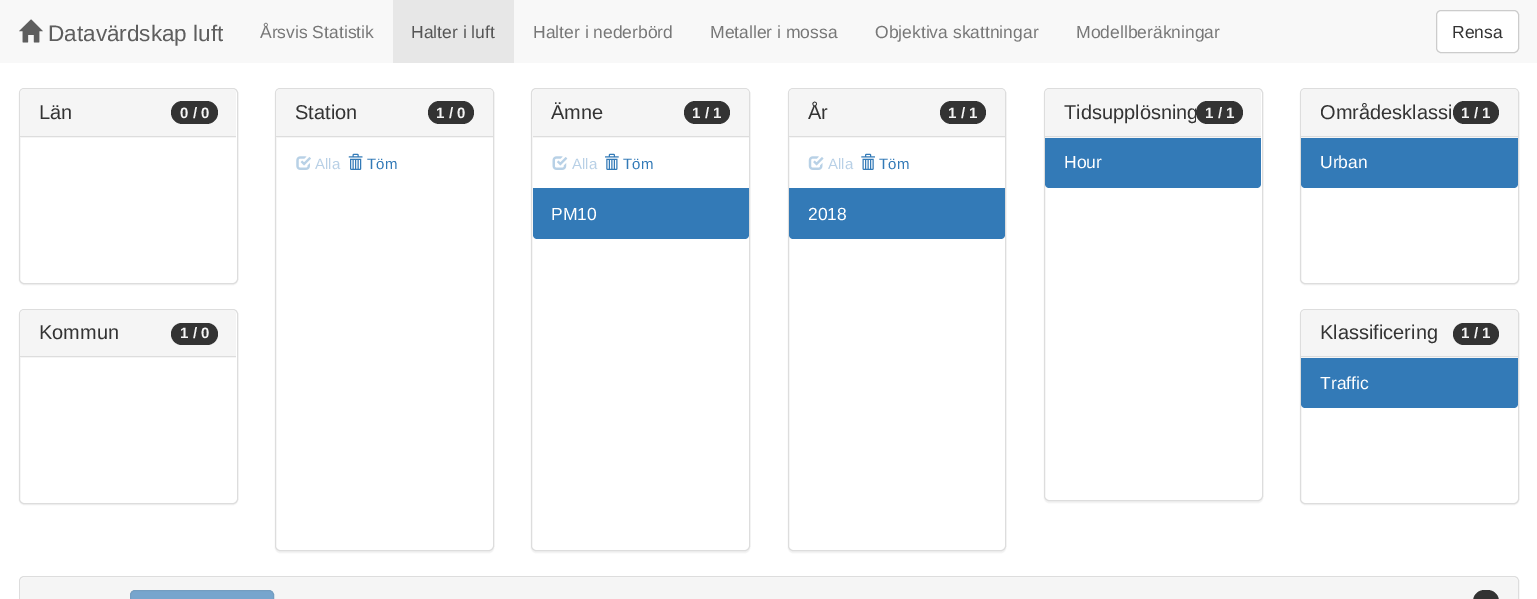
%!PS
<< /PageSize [1537 599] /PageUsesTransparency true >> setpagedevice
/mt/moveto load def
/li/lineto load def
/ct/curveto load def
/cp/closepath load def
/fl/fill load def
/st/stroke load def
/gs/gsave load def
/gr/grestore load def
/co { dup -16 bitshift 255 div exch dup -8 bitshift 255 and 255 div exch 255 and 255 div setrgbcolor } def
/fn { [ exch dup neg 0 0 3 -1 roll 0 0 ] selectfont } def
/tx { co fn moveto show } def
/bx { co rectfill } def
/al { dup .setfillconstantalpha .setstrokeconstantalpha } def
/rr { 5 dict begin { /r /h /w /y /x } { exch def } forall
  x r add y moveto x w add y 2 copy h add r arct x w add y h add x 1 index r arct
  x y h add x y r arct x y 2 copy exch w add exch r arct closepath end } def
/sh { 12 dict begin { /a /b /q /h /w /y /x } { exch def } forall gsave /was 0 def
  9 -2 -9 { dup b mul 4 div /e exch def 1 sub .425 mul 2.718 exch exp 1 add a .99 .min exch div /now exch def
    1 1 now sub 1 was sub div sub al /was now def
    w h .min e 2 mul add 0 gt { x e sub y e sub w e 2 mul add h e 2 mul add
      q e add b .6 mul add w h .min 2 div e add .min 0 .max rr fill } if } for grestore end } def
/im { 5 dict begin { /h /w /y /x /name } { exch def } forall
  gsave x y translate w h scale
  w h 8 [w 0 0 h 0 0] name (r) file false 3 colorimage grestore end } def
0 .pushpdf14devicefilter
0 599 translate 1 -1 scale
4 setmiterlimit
0 0 1537 599 16#FFFFFF bx
0 0 1537 63 16#F8F8F8 bx
(media/1.raw) 19 19 24 24 im
393 0 121 63 16#E7E7E7 bx
16#FFFFFF co
1436.5 10.5 82 42 4.5 rr gs fl gr
16#CCCCCC co
st
16#000000 co
19 89 219 196 5 .5 .05 sh
16#FFFFFF co
19.5 88.5 218 195 4.5 rr gs fl gr
16#DDDDDD co
st
16#F5F5F5 co
24 89 mt 232 89 li 234 89 236 91 236 93 ct 236 138 li 20 138 li 20 93 li 20 91 22 89 24 89 ct cp fl
20 136 216 1 16#DDDDDD bx
16#333333 co
171 101 47 23 11.5 rr fl
16#000000 co
19 310 219 195 5 .5 .05 sh
16#FFFFFF co
19.5 309.5 218 194 4.5 rr gs fl gr
16#DDDDDD co
st
16#F5F5F5 co
24 310 mt 232 310 li 234 310 236 312 236 314 ct 236 358 li 20 358 li 20 314 li 20 312 22 310 24 310 ct cp fl
20 356 216 1 16#DDDDDD bx
16#333333 co
171 323 47 22 11 rr fl
16#000000 co
275 89 219 464 5 .5 .05 sh
16#FFFFFF co
275.5 88.5 218 462 4.5 rr gs fl gr
16#DDDDDD co
st
16#F5F5F5 co
280 89 mt 489 89 li 491 89 493 91 493 93 ct 493 138 li 276 138 li 276 93 li 276 91 278 89 280 89 ct cp fl
276 136 217 1 16#DDDDDD bx
16#333333 co
428 101 46 23 11.5 rr fl
(media/2.raw) 296 156 15 14 im
(media/3.raw) 348 153 15 17 im
16#000000 co
531 89 219 464 5 .5 .05 sh
16#FFFFFF co
531.5 88.5 218 462 4.5 rr gs fl gr
16#DDDDDD co
st
16#F5F5F5 co
537 89 mt 745 89 li 747 89 749 91 749 93 ct 749 138 li 533 138 li 533 93 li 533 91 535 89 537 89 ct cp fl
533 136 216 1 16#DDDDDD bx
16#333333 co
684 101 46 23 11.5 rr fl
(media/4.raw) 552 156 16 14 im
(media/5.raw) 605 153 14 17 im
16#337AB7 co
533 188 mt 749 188 li 749 235 li 749 237 747 239 745 239 ct 537 239 li 535 239 533 237 533 235 ct cp fl
gs
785 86 mt 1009 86 li 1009 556 li 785 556 li cp 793 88 mt 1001 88 li 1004 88 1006 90 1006 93 ct 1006 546 li 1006 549 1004 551 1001 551 ct 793 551 li 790 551 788 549 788 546 ct 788 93 li 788 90 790 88 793 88 ct cp eoclip newpath
16#000000 co
788 89 218 464 5 .5 .05 sh
gr
16#DDDDDD co
788.5 88.5 217 462 4.5 rr st
16#F5F5F5 co
793 89 mt 1001 89 li 1003 89 1005 91 1005 93 ct 1005 138 li 789 138 li 789 93 li 789 91 791 89 793 89 ct cp fl
789 136 216 1 16#DDDDDD bx
16#333333 co
940 101 46 23 11.5 rr fl
(media/6.raw) 808 156 16 14 im
(media/7.raw) 861 153 14 17 im
16#337AB7 co
789 188 mt 1005 188 li 1005 235 li 1005 237 1003 239 1001 239 ct 793 239 li 791 239 789 237 789 235 ct cp fl
16#000000 co
1044 89 219 414 5 .5 .05 sh
16#FFFFFF co
1044.5 88.5 218 412 4.5 rr gs fl gr
16#DDDDDD co
st
16#F5F5F5 co
1049 89 mt 1257 89 li 1259 89 1261 91 1261 93 ct 1261 138 li 1045 138 li 1045 93 li 1045 91 1047 89 1049 89 ct cp fl
1045 136 216 1 16#DDDDDD bx
16#333333 co
1196 101 47 23 11.5 rr fl
16#337AB7 co
1045 138 mt 1261 138 li 1261 184 li 1261 186 1259 188 1257 188 ct 1049 188 li 1047 188 1045 186 1045 184 ct cp fl
16#000000 co
1300 89 219 196 5 .5 .05 sh
16#FFFFFF co
1300.5 88.5 218 195 4.5 rr gs fl gr
16#DDDDDD co
st
16#F5F5F5 co
1305 89 mt 1514 89 li 1516 89 1518 91 1518 93 ct 1518 138 li 1301 138 li 1301 93 li 1301 91 1303 89 1305 89 ct cp fl
1301 136 217 1 16#DDDDDD bx
16#333333 co
1453 101 46 23 11.5 rr fl
16#337AB7 co
1301 138 mt 1518 138 li 1518 184 li 1518 186 1516 188 1514 188 ct 1305 188 li 1303 188 1301 186 1301 184 ct cp fl
16#000000 co
1300 310 219 195 5 .5 .05 sh
16#FFFFFF co
1300.5 309.5 218 194 4.5 rr gs fl gr
16#DDDDDD co
st
16#F5F5F5 co
1305 310 mt 1514 310 li 1516 310 1518 312 1518 314 ct 1518 358 li 1301 358 li 1301 314 li 1301 312 1303 310 1305 310 ct cp fl
1301 356 217 1 16#DDDDDD bx
16#333333 co
1453 323 46 22 11 rr fl
16#337AB7 co
1301 358 mt 1518 358 li 1518 404 li 1518 406 1516 408 1514 408 ct 1305 408 li 1303 408 1301 406 1301 404 ct cp fl
16#DDDDDD co
19.5 576.5 1499 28 4.5 rr st
16#F5F5F5 co
24 578 mt 1514 578 li 1516 578 1518 580 1518 582 ct 1518 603 li 20 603 li 20 582 li 20 580 22 578 24 578 ct cp fl
16#77A5CD co
130.5 590.5 143 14 4.5 rr gs fl gr
16#749DC0 co
st
16#333333 co
1473 590 26 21 11.5 rr fl
(Datavärdskap luft) 48 41 /LiberationSans-Regular 22.5 16#5E5E5E tx
(Årsvis Statistik) 260 38 /LiberationSans-Regular 17.5 16#777777 tx
(Halter i luft) 411 38 /LiberationSans-Regular 17.5 16#555555 tx
(Halter i nederbörd) 533 38 /LiberationSans-Regular 17.5 16#777777 tx
(Metaller i mossa) 710 38 /LiberationSans-Regular 17.5 16#777777 tx
(Objektiva skattningar) 875 38 /LiberationSans-Regular 17.5 16#777777 tx
(Modellberäkningar) 1076 38 /LiberationSans-Regular 17.5 16#777777 tx
(Rensa) 1452 38 /LiberationSans-Regular 17.5 16#333333 tx
(Län) 39 119 /LiberationSans-Regular 20 16#333333 tx
(0 / 0) 180 118 /LiberationSans-Bold 15 16#F5F5F5 tx
(Kommun) 39 339 /LiberationSans-Regular 20 16#333333 tx
(1 / 0) 180 338 /LiberationSans-Bold 15 16#F5F5F5 tx
(Station) 295 119 /LiberationSans-Regular 20 16#333333 tx
(1 / 0) 436 118 /LiberationSans-Bold 15 16#F5F5F5 tx
(Alla) 315 169 /LiberationSans-Regular 15 16#B8D0E6 tx
(Töm) 367 169 /LiberationSans-Regular 15 16#337AB7 tx
(Ämne) 551 119 /LiberationSans-Regular 20 16#333333 tx
(1 / 1) 692 118 /LiberationSans-Bold 15 16#F5F5F5 tx
(Alla) 572 169 /LiberationSans-Regular 15 16#B8D0E6 tx
(Töm) 623 169 /LiberationSans-Regular 15 16#337AB7 tx
(PM10) 551 220 /LiberationSans-Regular 17.5 16#FFFFFF tx
(År) 808 119 /LiberationSans-Regular 20 16#333333 tx
(1 / 1) 948 118 /LiberationSans-Bold 15 16#F5F5F5 tx
(Alla) 828 169 /LiberationSans-Regular 15 16#B8D0E6 tx
(Töm) 879 169 /LiberationSans-Regular 15 16#337AB7 tx
(2018) 808 220 /LiberationSans-Regular 17.5 16#FFFFFF tx
gs
1064 101 132 23 rectclip
(Tidsupplösning) 1064 119 /LiberationSans-Regular 20 16#333333 tx
gr
(1 / 1) 1205 118 /LiberationSans-Bold 15 16#F5F5F5 tx
(Hour) 1064 168 /LiberationSans-Regular 17.5 16#FFFFFF tx
(Områdesklassi) 1320 119 /LiberationSans-Regular 20 16#333333 tx
(1 / 1) 1461 118 /LiberationSans-Bold 15 16#F5F5F5 tx
(Urban) 1320 168 /LiberationSans-Regular 17.5 16#FFFFFF tx
(Klassificering) 1320 339 /LiberationSans-Regular 20 16#333333 tx
(1 / 1) 1461 338 /LiberationSans-Bold 15 16#F5F5F5 tx
(Traffic) 1320 389 /LiberationSans-Regular 17.5 16#FFFFFF tx
.poppdf14devicefilter showpage
